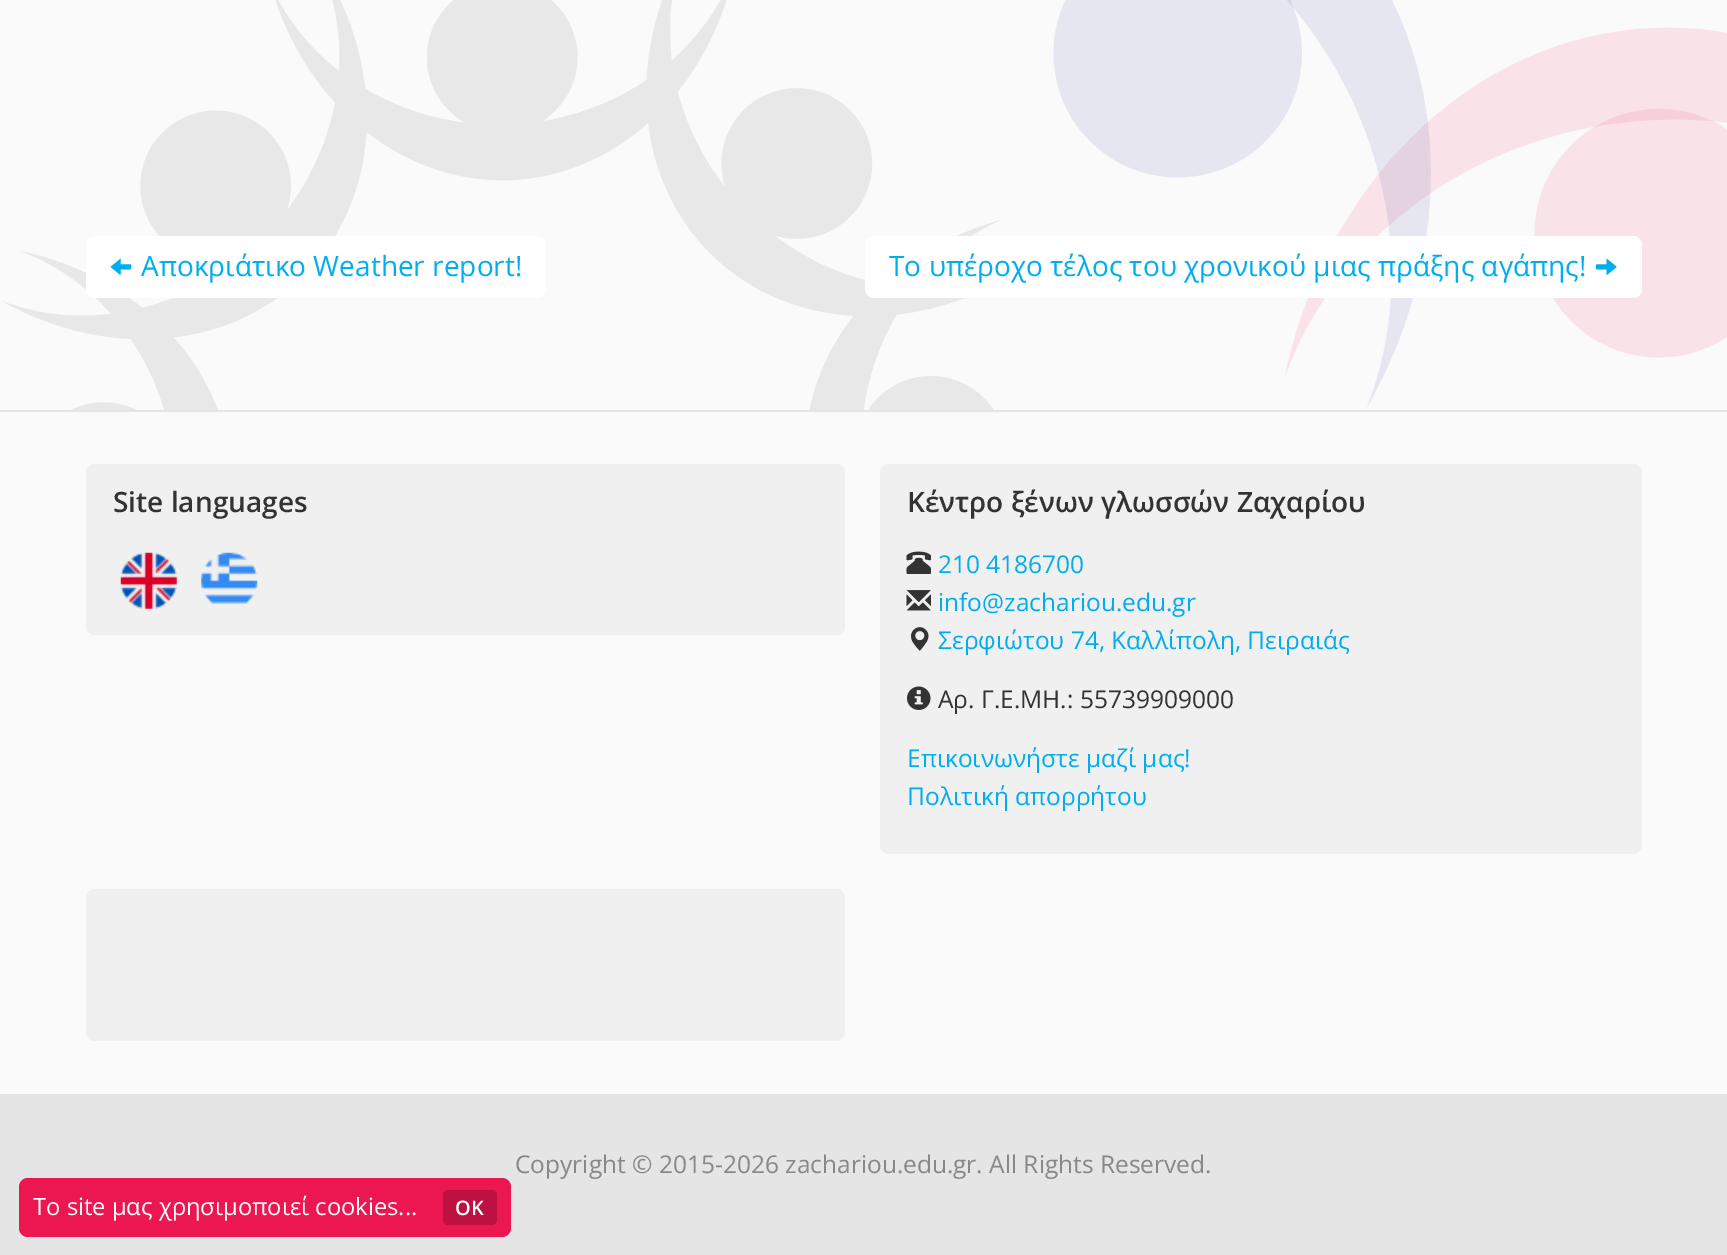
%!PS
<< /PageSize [1727 1255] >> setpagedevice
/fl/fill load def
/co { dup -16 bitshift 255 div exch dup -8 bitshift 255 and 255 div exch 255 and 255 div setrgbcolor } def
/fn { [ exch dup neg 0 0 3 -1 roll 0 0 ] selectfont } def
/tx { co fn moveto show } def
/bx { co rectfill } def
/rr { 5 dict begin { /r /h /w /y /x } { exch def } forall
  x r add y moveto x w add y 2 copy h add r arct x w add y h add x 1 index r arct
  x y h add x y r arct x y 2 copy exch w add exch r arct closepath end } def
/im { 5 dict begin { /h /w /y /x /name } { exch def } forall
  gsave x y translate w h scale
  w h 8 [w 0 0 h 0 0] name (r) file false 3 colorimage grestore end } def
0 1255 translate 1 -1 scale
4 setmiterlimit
0 0 1727 1255 16#FAFAFA bx
(media/1.raw) 2 0 999 410 im
(media/2.raw) 1053 0 674 407 im
16#FFFFFF co
86 236 460 62 9 rr fl
(media/3.raw) 110 258 22 17 im
865 236 777 62 9 rr fl
(media/4.raw) 1596 258 21 17 im
0 410 1727 2 16#E5E5E5 bx
16#F0F0F0 co
86 464 759 171 9 rr fl
(media/5.raw) 120 552 57 57 im
(media/6.raw) 201 552 57 52 im
880 464 762 390 9 rr fl
(media/7.raw) 906 551 25 23 im
(media/8.raw) 906 590 25 21 im
(media/9.raw) 911 627 18 24 im
(media/10.raw) 907 686 24 24 im
86 889 759 152 9 rr fl
0 1094 1727 161 16#E5E5E5 bx
16#EC1651 co
19 1178 492 59 9 rr fl
16#BD1241 co
443 1190 54 35 5 rr fl
(Αποκριάτικο Weather report!) 141 276 /OpenSans-Regular 28 16#00AEEF tx
(Το υπέροχο τέλος του χρονικού μιας πράξης αγάπης!) 889 276 /OpenSans-Regular 28 16#00AEEF tx
(Site languages) 113 512 /OpenSans-SemiBold 28 16#333333 tx
(Κέντρο ξένων γλωσσών Ζαχαρίου) 907 512 /OpenSans-SemiBold 28 16#333333 tx
(210 4186700) 938 573 /OpenSans-Regular 24.5 16#00AEEF tx
(info@zachariou.edu.gr) 938 611 /OpenSans-Regular 24.5 16#00AEEF tx
(Σερφιώτου 74, Καλλίπολη, Πειραιάς) 938 649 /OpenSans-Regular 24.5 16#00AEEF tx
(Αρ. Γ.Ε.ΜΗ.: 55739909000) 938 708 /OpenSans-Regular 24.5 16#333333 tx
(Επικοινωνήστε μαζί μας!) 907 767 /OpenSans-Regular 24.5 16#00AEEF tx
(Πολιτική απορρήτου) 907 805 /OpenSans-Regular 24.5 16#00AEEF tx
(Copyright © 2015-2026 zachariou.edu.gr. All Rights Reserved.) 515 1173 /OpenSans-Regular 24.5 16#888888 tx
(Το site μας χρησιμοποιεί cookies...) 33 1215 /OpenSans-Regular 23.75 16#FFFFFF tx
(OK) 455 1215 /OpenSans-SemiBold 20 16#FFFFFF tx
showpage
